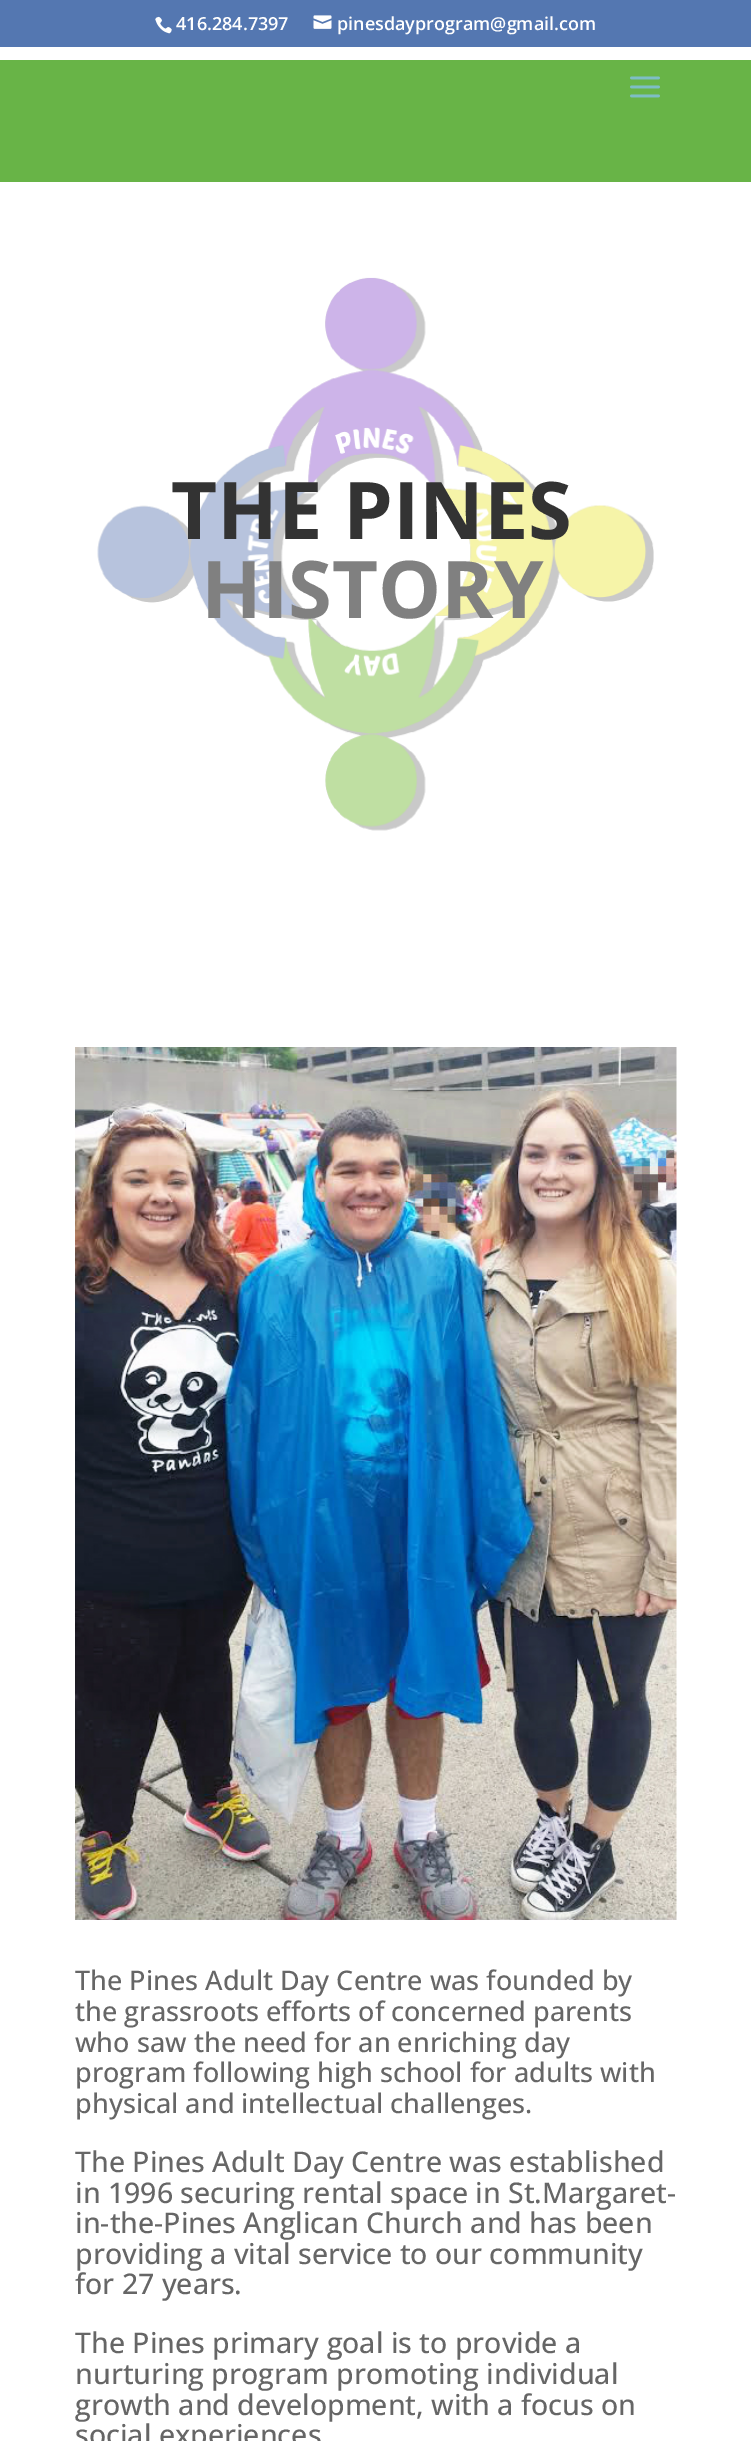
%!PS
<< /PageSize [751 2441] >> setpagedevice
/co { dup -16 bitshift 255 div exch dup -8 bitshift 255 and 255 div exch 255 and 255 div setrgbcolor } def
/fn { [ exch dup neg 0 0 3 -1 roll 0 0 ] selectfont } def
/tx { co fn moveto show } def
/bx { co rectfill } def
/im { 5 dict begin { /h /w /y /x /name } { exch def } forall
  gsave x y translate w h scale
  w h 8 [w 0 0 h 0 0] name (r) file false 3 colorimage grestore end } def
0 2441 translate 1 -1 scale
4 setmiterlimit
0 0 751 2441 16#FFFFFF bx
0 0 751 47 16#5477B1 bx
(media/1.raw) 155 16 17 18 im
(media/2.raw) 313 15 19 14 im
0 60 751 122 16#68B447 bx
(media/3.raw) 630 76 30 22 im
(media/4.raw) 97 277 557 554 im
(media/5.raw) 75 1047 602 873 im
(416.284.7397) 176 30 /OpenSans-SemiBold 18 16#FFFFFF tx
(pinesdayprogram@gmail.com) 337 30 /OpenSans-SemiBold 18 16#FFFFFF tx
(THE PINES) 171 539 /OpenSans-Bold 79.5 16#333333 tx
(HISTORY) 201 618 /OpenSans-Bold 79.5 16#808080 tx
(The Pines Adult Day Centre was founded by) 75 1990 /OpenSans-Medium 27 16#666666 tx
(the grassroots efforts of concerned parents) 75 2021 /OpenSans-Medium 27 16#666666 tx
(who saw the need for an enriching day) 75 2052 /OpenSans-Medium 27 16#666666 tx
(program following high school for adults with) 75 2082 /OpenSans-Medium 27 16#666666 tx
(physical and intellectual challenges.) 75 2113 /OpenSans-Medium 27 16#666666 tx
(The Pines Adult Day Centre was established) 75 2172 /OpenSans-Medium 28.5 16#666666 tx
(in 1996 securing rental space in St.Margaret-) 75 2203 /OpenSans-Medium 28.5 16#666666 tx
(in-the-Pines Anglican Church and has been) 75 2233 /OpenSans-Medium 28.5 16#666666 tx
(providing a vital service to our community) 75 2264 /OpenSans-Medium 28.5 16#666666 tx
(for 27 years.) 75 2294 /OpenSans-Medium 28.5 16#666666 tx
(The Pines primary goal is to provide a) 75 2353 /OpenSans-Medium 28.5 16#666666 tx
(nurturing program promoting individual) 75 2384 /OpenSans-Medium 28.5 16#666666 tx
(growth and development, with a focus on) 75 2415 /OpenSans-Medium 28.5 16#666666 tx
(social experiences) 75 2445 /OpenSans-Medium 28.5 16#666666 tx
showpage
